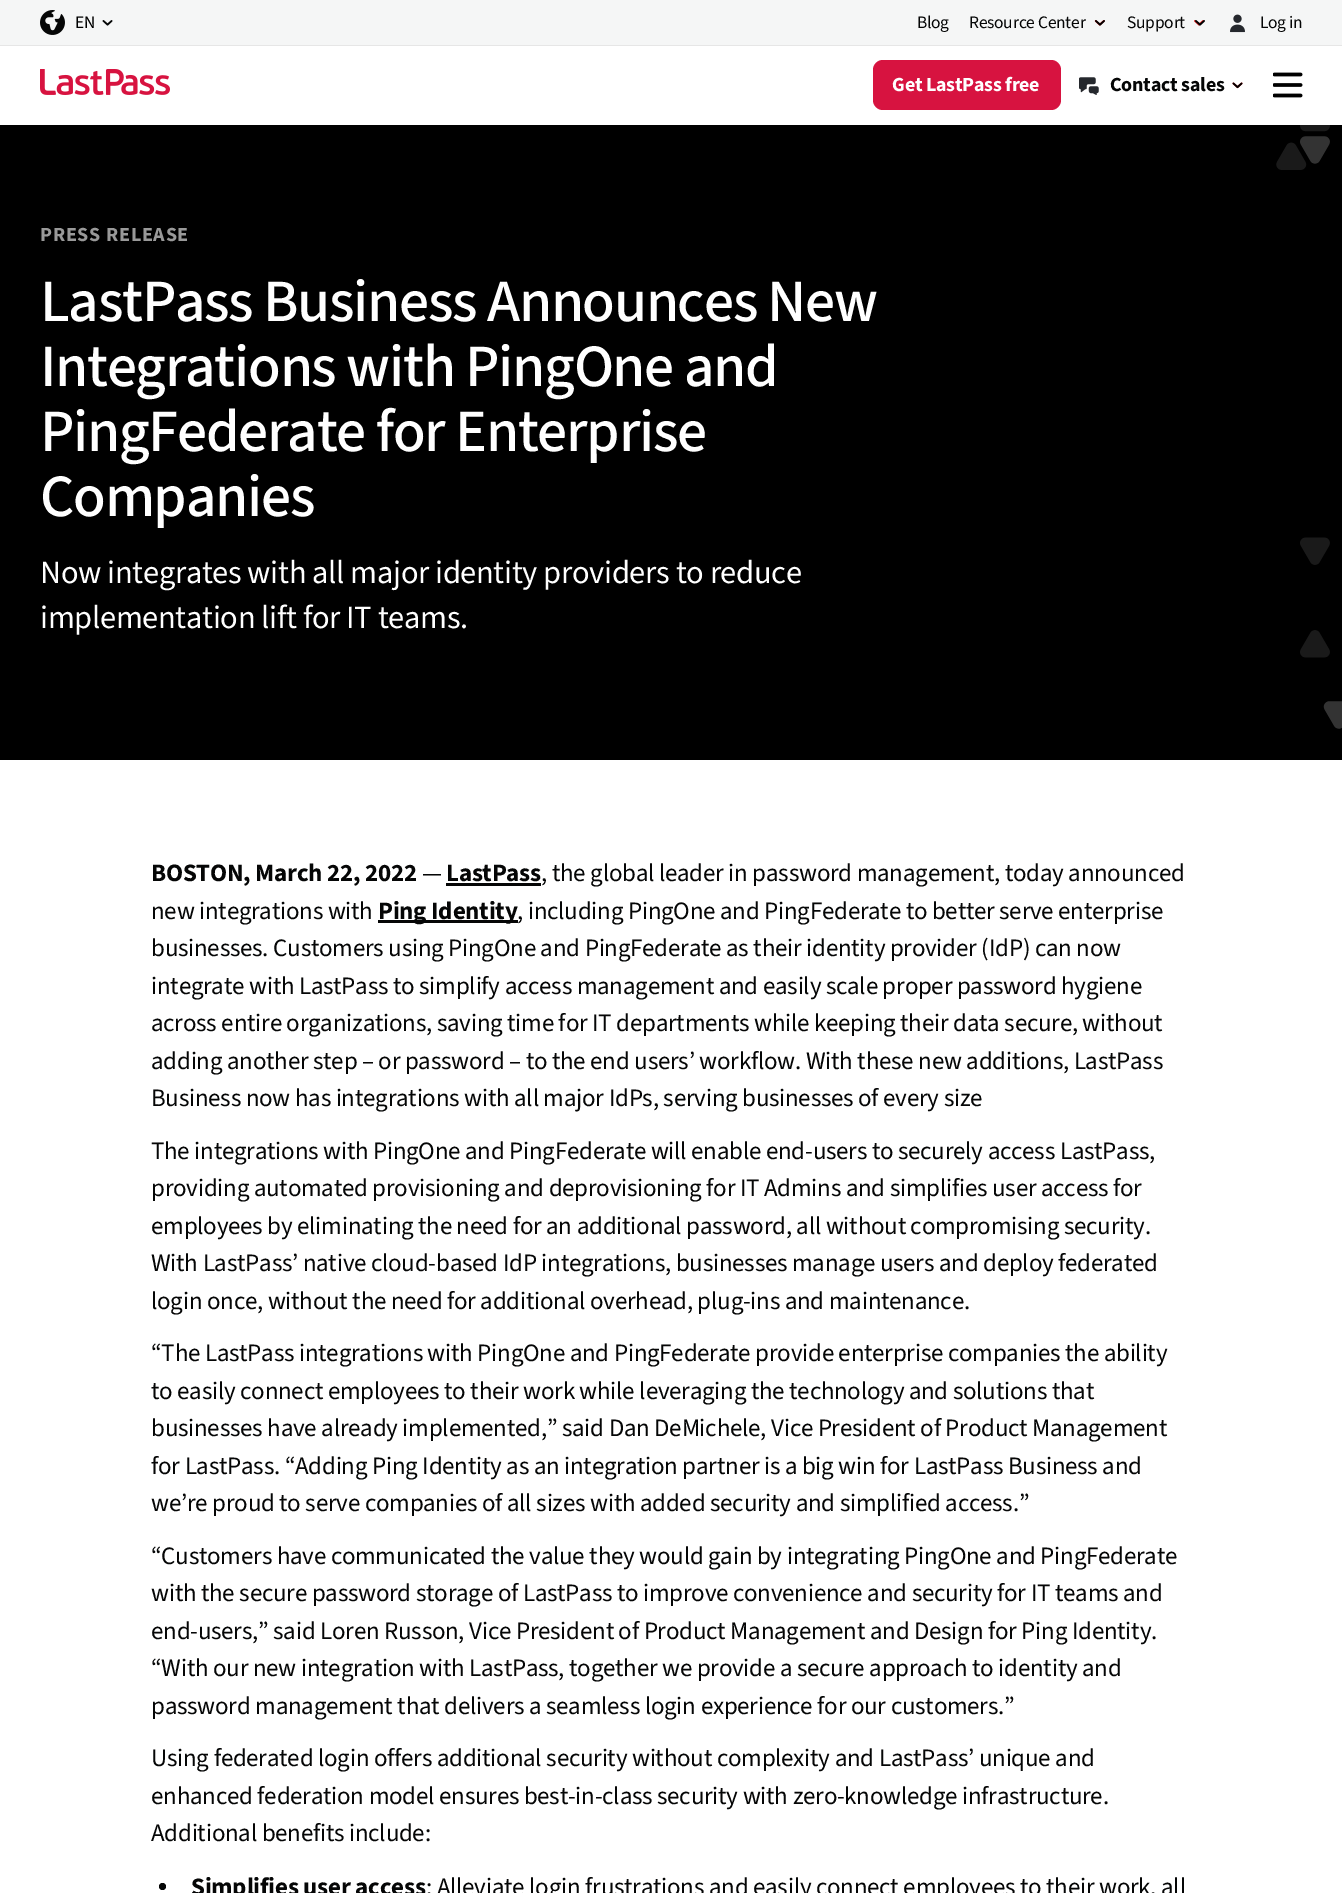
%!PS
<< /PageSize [1342 1893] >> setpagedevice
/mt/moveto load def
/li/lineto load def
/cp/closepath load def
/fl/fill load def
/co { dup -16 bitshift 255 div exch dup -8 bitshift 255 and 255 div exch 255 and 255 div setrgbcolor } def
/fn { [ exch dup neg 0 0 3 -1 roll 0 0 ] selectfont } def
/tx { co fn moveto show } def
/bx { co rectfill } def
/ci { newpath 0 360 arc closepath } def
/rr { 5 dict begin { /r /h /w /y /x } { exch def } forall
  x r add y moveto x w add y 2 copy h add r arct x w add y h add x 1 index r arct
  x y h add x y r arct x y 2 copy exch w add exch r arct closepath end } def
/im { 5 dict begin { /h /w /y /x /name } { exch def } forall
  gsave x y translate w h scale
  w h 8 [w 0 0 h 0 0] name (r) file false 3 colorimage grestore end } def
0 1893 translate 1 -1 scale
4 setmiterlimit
0 0 1342 1893 16#FFFFFF bx
16#E6E6E6 co
0 45 mt 0 46 li 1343 46 li 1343 1 li 1342 1 li 1342 45 li cp fl
0 0 1342 45 16#F5F6F6 bx
(media/1.raw) 40 10 25 25 im
(media/2.raw) 102 20 11 6 im
(media/3.raw) 1094 20 11 6 im
(media/4.raw) 1095 20 10 6 im
(media/5.raw) 1194 20 10 6 im
(media/6.raw) 1195 20 10 6 im
(media/7.raw) 1230 14 15 19 im
(media/8.raw) 40 69 130 26 im
16#D71340 co
873 60 188 50 10 rr fl
(media/9.raw) 1079 77 20 18 im
(media/10.raw) 1232 82 11 7 im
(media/11.raw) 1232 82 11 7 im
(media/12.raw) 1273 72 30 26 im
0 125 1342 635 16#000000 bx
(media/13.raw) 1276 125 66 604 im
446 883 95 3 16#050606 bx
378 920 140 3 16#050606 bx
162.5 1886.5 3.5 ci fl
(EN) 75 28 /SourceSans3-Regular 17.5 16#000000 tx
16#050606 co
917 28 mt -.25 0 (Blog) ashow
969 28 mt -.25 0 (Resource Center) ashow
1127 28 mt -.25 0 (Support) ashow
1260 28 mt -.25 0 (Log in) ashow
/SourceSans3-Bold 20 fn
16#FFFFFF co
892 91 mt -.25 0 (Get LastPass free) ashow
16#050606 co
1110 91 mt -.25 0 (Contact sales) ashow
16#999999 co
40 241 mt .75 0 (PRESS RELEASE) ashow
/SourceSans3-Medium 60 fn
16#FFFFFF co
40 321 mt -1.3 0 (LastPass Business Announces New) ashow
40 386 mt -1.3 0 (Integrations with PingOne and) ashow
40 451 mt -1.3 0 (PingFederate for Enterprise) ashow
40 516 mt -1.3 0 (Companies) ashow
/SourceSans3-Regular 32.5 fn
40 583 mt -.35 0 (Now integrates with all major identity providers to reduce) ashow
40 628 mt -.35 0 (implementation lift for IT teams.) ashow
/SourceSans3-Bold 25 fn
16#050606 co
151 881 mt -.25 0 (BOSTON, March 22, 2022) ashow
/SourceSans3-Regular 25 fn
422 881 mt -.25 0 (—) ashow
/SourceSans3-Bold 25 fn
446 881 mt -.25 0 (LastPass) ashow
/SourceSans3-Regular 25 fn
541 881 mt -.25 0 (, the global leader in password management, today announced) ashow
151 919 mt -.25 0 (new integrations with) ashow
/SourceSans3-Bold 25 fn
378 919 mt -.25 0 (Ping Identity) ashow
/SourceSans3-Regular 25 fn
517 919 mt -.25 0 (, including PingOne and PingFederate to better serve enterprise) ashow
151 956 mt -.25 0 (businesses. Customers using PingOne and PingFederate as their identity provider \(IdP\) can now) ashow
151 994 mt -.25 0 (integrate with LastPass to simplify access management and easily scale proper password hygiene) ashow
151 1031 mt -.25 0 (across entire organizations, saving time for IT departments while keeping their data secure, without) ashow
151 1069 mt -.25 0 (adding another step – or password – to the end users’ workflow. With these new additions, LastPass) ashow
151 1106 mt -.25 0 (Business now has integrations with all major IdPs, serving businesses of every size) ashow
151 1159 mt -.25 0 (The integrations with PingOne and PingFederate will enable end-users to securely access LastPass,) ashow
151 1196 mt -.25 0 (providing automated provisioning and deprovisioning for IT Admins and simplifies user access for) ashow
151 1234 mt -.25 0 (employees by eliminating the need for an additional password, all without compromising security.) ashow
151 1271 mt -.25 0 (With LastPass’ native cloud-based IdP integrations, businesses manage users and deploy federated) ashow
151 1309 mt -.25 0 (login once, without the need for additional overhead, plug-ins and maintenance.) ashow
151 1361 mt -.25 0 (“The LastPass integrations with PingOne and PingFederate provide enterprise companies the ability) ashow
151 1399 mt -.25 0 (to easily connect employees to their work while leveraging the technology and solutions that) ashow
151 1436 mt -.25 0 (businesses have already implemented,” said Dan DeMichele, Vice President of Product Management) ashow
151 1474 mt -.25 0 (for LastPass. “Adding Ping Identity as an integration partner is a big win for LastPass Business and) ashow
151 1511 mt -.25 0 (we’re proud to serve companies of all sizes with added security and simplified access.”) ashow
151 1564 mt -.25 0 (“Customers have communicated the value they would gain by integrating PingOne and PingFederate) ashow
151 1601 mt -.25 0 (with the secure password storage of LastPass to improve convenience and security for IT teams and) ashow
151 1639 mt -.25 0 (end-users,” said Loren Russon, Vice President of Product Management and Design for Ping Identity.) ashow
151 1676 mt -.25 0 (“With our new integration with LastPass, together we provide a secure approach to identity and) ashow
151 1714 mt -.25 0 (password management that delivers a seamless login experience for our customers.”) ashow
151 1766 mt -.25 0 (Using federated login offers additional security without complexity and LastPass’ unique and) ashow
151 1804 mt -.25 0 (enhanced federation model ensures best-in-class security with zero-knowledge infrastructure.) ashow
151 1841 mt -.25 0 (Additional benefits include:) ashow
/SourceSans3-Bold 25 fn
191 1895 mt -.25 0 (Simplifies user access) ashow
/SourceSans3-Regular 25 fn
426 1895 mt -.25 0 (: Alleviate login frustrations and easily connect employees to their work, all) ashow
showpage
